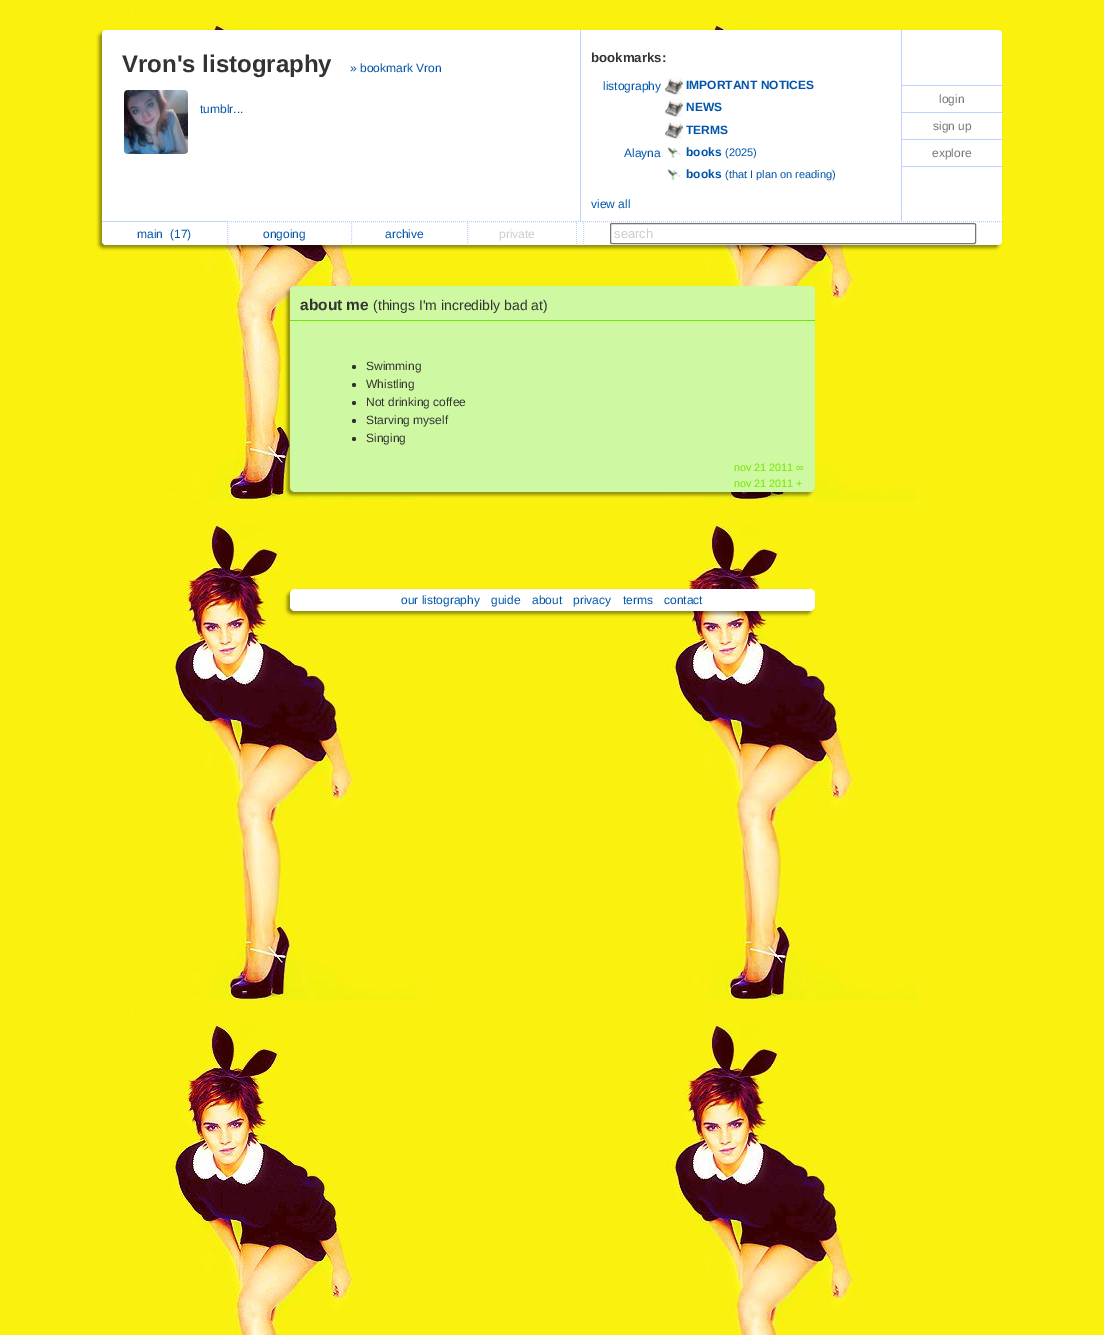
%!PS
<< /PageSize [1104 1335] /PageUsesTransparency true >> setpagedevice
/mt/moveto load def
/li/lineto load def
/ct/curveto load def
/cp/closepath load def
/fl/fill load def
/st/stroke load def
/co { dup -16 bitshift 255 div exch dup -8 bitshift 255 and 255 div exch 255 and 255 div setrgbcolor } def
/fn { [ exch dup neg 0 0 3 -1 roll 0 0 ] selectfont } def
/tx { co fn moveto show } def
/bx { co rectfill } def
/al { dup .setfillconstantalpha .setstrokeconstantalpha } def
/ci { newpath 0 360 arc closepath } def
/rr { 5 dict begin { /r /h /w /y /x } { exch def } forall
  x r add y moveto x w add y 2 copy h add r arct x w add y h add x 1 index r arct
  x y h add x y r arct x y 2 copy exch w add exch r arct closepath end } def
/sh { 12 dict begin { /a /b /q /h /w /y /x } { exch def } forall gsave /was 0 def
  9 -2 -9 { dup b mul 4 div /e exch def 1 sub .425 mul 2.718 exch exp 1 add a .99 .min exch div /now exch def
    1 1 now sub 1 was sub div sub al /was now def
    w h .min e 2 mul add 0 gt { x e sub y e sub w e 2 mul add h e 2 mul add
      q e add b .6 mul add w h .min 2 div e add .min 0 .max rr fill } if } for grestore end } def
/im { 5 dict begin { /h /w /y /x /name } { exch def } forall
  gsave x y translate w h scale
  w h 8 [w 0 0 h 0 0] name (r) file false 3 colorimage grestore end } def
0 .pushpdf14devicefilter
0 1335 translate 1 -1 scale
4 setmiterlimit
0 0 1104 1335 16#FFFFFF bx
(media/1.raw) 0 0 1104 1335 im
16#000000 co
99 33 900 215 4 1.5 .4 sh
16#FFFFFF co
102 30 900 215 4 rr fl
580 30 1 192 16#BED4FF bx
(media/2.raw) 124 90 64 64 im
(media/3.raw) 665 77 18 18 im
(media/3.raw) 665 99 18 18 im
(media/3.raw) 665 121 18 18 im
(media/4.raw) 665 147 16 14 im
(media/4.raw) 665 169 16 14 im
901 30 1 192 16#BED4FF bx
902 85 101 1 16#BED4FF bx
902 112 101 1 16#BED4FF bx
902 139 101 1 16#BED4FF bx
902 166 101 1 16#BED4FF bx
102 221 125 1 16#BED4FF bx
[1 1] 0 setdash
227 221.5 mt 351 221.5 li st
227.5 221 mt 227.5 245 li st
351 221.5 mt 467 221.5 li st
351.5 221 mt 351.5 245 li st
467 221.5 mt 576 221.5 li st
467.5 221 mt 467.5 245 li st
[] 0 setdash
576 221.5 mt 577 221.5 li 578 221.5 mt 579 221.5 li 580 221.5 mt 581 221.5 li 582 221.5 mt 583 221.5 li st
[1 1] 0 setdash
576.5 221 mt 576.5 245 li st
583 221.5 mt 1002 221.5 li st
583.5 221 mt 583.5 245 li st
16#767676 co
[] 0 setdash
610.5 223.5 365 20 1.5 rr st
16#000000 co
287 289 525 206 5 1.5 .4 sh
16#CEF9A2 co
290 286 525 206 5 rr fl
295 286 mt 810 286 li 813 286 815 288 815 291 ct 815 321 li 290 321 li 290 291 li 290 288 292 286 295 286 ct cp fl
295 286 mt 292 286 290 288 290 291 ct 290 289 292 287 295 287 ct 810 287 li 813 287 815 289 815 291 ct 815 288 813 286 810 286 ct cp fl
290 320 525 1 16#73E600 bx
16#333333 co
354 367 2 ci fl
354 385 2 ci fl
354 403 2 ci fl
354 421 2 ci fl
354 439 2 ci fl
16#000000 co
287 592 525 22 5 1.5 .4 sh
16#FFFFFF co
290 589 525 22 5 rr fl
(Vron's listography) 122 72 /LiberationSans-Bold 24 16#333333 tx
(» bookmark Vron) 350 72 /LiberationSans-Regular 12 16#0055AA tx
(tumblr...) 200 113 /LiberationSans-Regular 12 16#0055AA tx
(bookmarks:) 591 62 /LiberationSans-Bold 13.25 16#333333 tx
(listography) 603 90 /LiberationSans-Regular 12 16#0055AA tx
(IMPORTANT NOTICES) 686 89 /LiberationSans-Bold 12 16#0055AA tx
(NEWS) 686 111 /LiberationSans-Bold 12 16#0055AA tx
(TERMS) 686 134 /LiberationSans-Bold 12 16#0055AA tx
(Alayna) 624 157 /LiberationSans-Regular 12 16#0055AA tx
(books) 686 156 /LiberationSans-Bold 12 16#0055AA tx
(\(2025\)) 725 156 /LiberationSans-Regular 11 16#0055AA tx
(books) 686 178 /LiberationSans-Bold 12 16#0055AA tx
(\(that I plan on reading\)) 725 178 /LiberationSans-Regular 11 16#0055AA tx
(view all) 591 208 /LiberationSans-Regular 12 16#0055AA tx
(login) 939 103 /LiberationSans-Regular 12 16#777777 tx
(sign up) 933 130 /LiberationSans-Regular 12 16#777777 tx
(explore) 932 157 /LiberationSans-Regular 12 16#777777 tx
(main) 137 238 /LiberationSans-Regular 12 16#0055AA tx
(\(17\)) 170 238 /LiberationSans-Regular 12 16#0055AA tx
(ongoing) 263 238 /LiberationSans-Regular 12 16#0055AA tx
(archive) 385 238 /LiberationSans-Regular 12 16#0055AA tx
(private) 499 238 /LiberationSans-Regular 12 16#CCCCCC tx
(search) 614 238 /LiberationSans-Regular 13 16#CCCCCC tx
(about me) 300 310 /LiberationSans-Bold 15.5 16#333333 tx
(\(things I'm incredibly bad at\)) 373 310 /LiberationSans-Regular 14 16#333333 tx
(Swimming) 366 370 /LiberationSans-Regular 12 16#333333 tx
(Whistling) 366 388 /LiberationSans-Regular 12 16#333333 tx
(Not drinking coffee) 366 406 /LiberationSans-Regular 12 16#333333 tx
(Starving myself) 366 424 /LiberationSans-Regular 12 16#333333 tx
(Singing) 366 442 /LiberationSans-Regular 12 16#333333 tx
(nov 21 2011 ∞) 734 471 /LiberationSans-Regular 10.75 16#73E600 tx
(nov 21 2011 +) 734 487 /LiberationSans-Regular 10.75 16#73E600 tx
(our listography) 401 604 /LiberationSans-Regular 12 16#0055AA tx
(guide) 491 604 /LiberationSans-Regular 12 16#0055AA tx
(about) 532 604 /LiberationSans-Regular 12 16#0055AA tx
(privacy) 573 604 /LiberationSans-Regular 12 16#0055AA tx
(terms) 623 604 /LiberationSans-Regular 12 16#0055AA tx
(contact) 664 604 /LiberationSans-Regular 12 16#0055AA tx
.poppdf14devicefilter showpage
